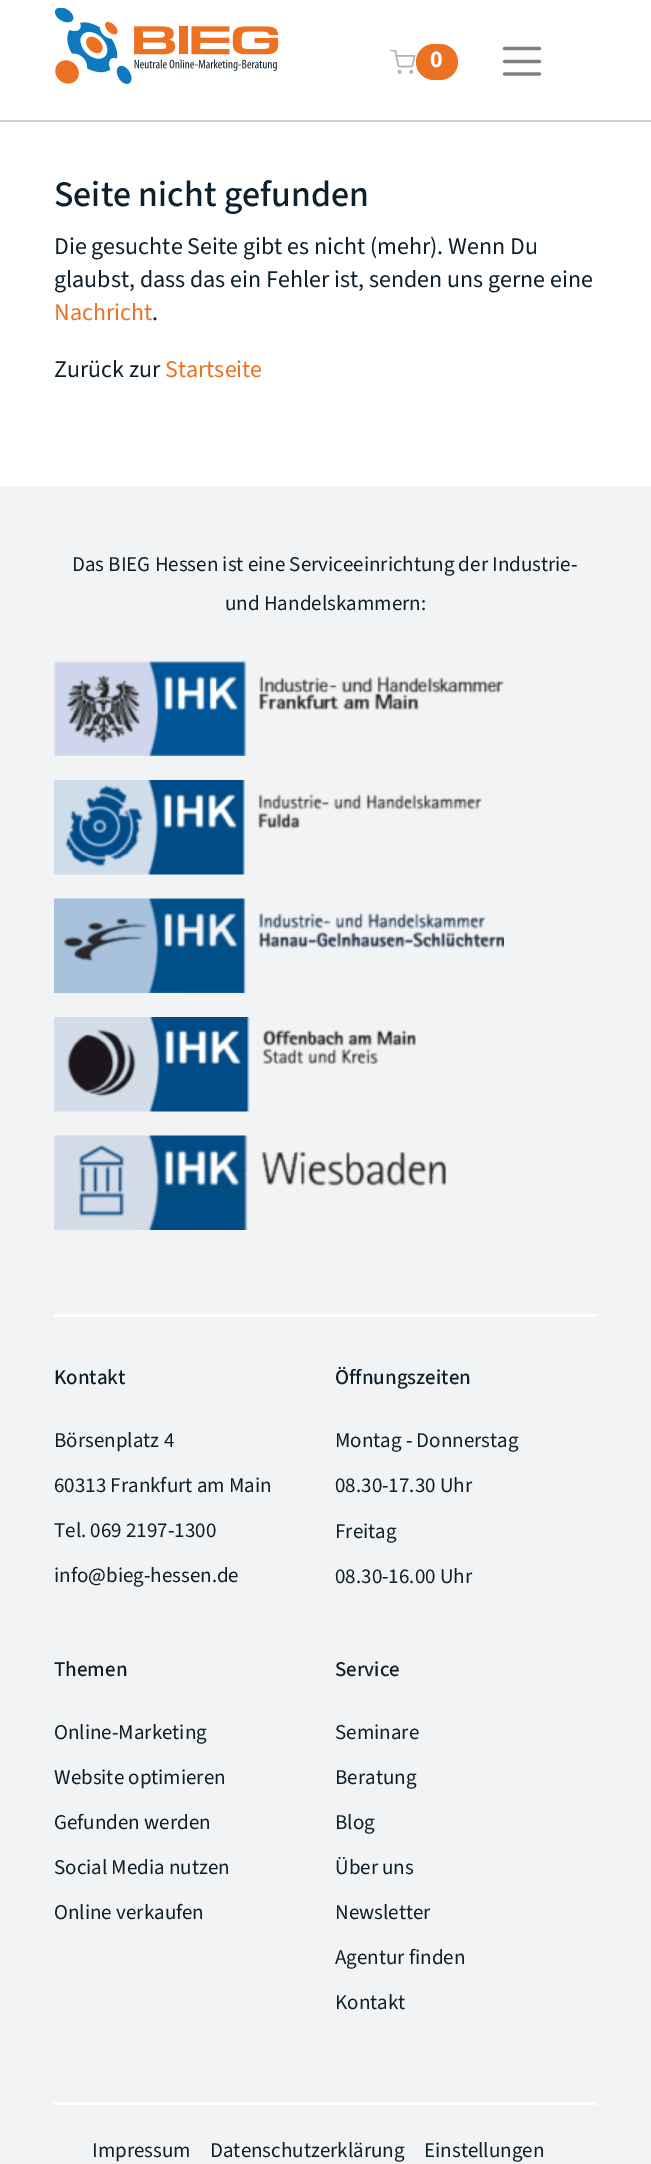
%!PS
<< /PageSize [651 2164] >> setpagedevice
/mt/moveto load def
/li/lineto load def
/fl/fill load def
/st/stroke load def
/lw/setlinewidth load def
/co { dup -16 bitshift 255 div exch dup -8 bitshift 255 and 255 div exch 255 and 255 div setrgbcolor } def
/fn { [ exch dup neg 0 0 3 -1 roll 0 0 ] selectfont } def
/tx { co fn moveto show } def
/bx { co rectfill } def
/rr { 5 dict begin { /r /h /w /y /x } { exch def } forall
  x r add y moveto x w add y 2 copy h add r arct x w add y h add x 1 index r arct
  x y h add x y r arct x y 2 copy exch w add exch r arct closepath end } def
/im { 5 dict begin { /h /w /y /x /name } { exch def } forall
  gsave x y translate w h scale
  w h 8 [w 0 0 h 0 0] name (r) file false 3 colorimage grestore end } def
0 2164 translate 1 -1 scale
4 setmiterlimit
0 0 651 2164 16#FFFFFF bx
0 120 651 2 16#D3D3D3 bx
(media/1.raw) 54 8 225 76 im
(media/2.raw) 390 50 26 24 im
16#ED7123 co
416 44 42 36 18 rr fl
16#808080 co
3.2 lw
1 setlinecap
504.5 48.5 mt 539.5 48.5 li 504.5 61.5 mt 539.5 61.5 li 504.5 74 mt 539.5 74 li st
0 486 651 1678 16#F2F3F4 bx
(media/3.raw) 54 661 450 95 im
(media/4.raw) 54 780 428 95 im
(media/5.raw) 54 898 450 95 im
(media/6.raw) 54 1017 362 95 im
(media/7.raw) 54 1135 393 95 im
54 1314 543 3 16#FFFFFF bx
54 2102 543 3 16#FFFFFF bx
(0) 430 67 /SourceSans3-Bold 24 16#FFFFFF tx
(Seite nicht gefunden) 54 206 /SourceSans3-Medium 36 16#0E202C tx
(Die gesuchte Seite gibt es nicht \(mehr\). Wenn Du) 54 254 /SourceSans3-Regular 24 16#0E202C tx
(glaubst, dass das ein Fehler ist, senden uns gerne eine) 54 287 /SourceSans3-Regular 24 16#0E202C tx
(Nachricht) 54 320 /SourceSans3-Regular 24 16#ED7123 tx
(.) 152 320 /SourceSans3-Regular 24 16#0E202C tx
(Zurück zur) 54 377 /SourceSans3-Regular 24 16#0E202C tx
(Startseite) 165 377 /SourceSans3-Regular 24 16#ED7123 tx
(Das BIEG Hessen ist eine Serviceeinrichtung der Industrie-) 72 571 /SourceSans3-Regular 21 16#0E202C tx
(und Handelskammern:) 225 610 /SourceSans3-Regular 21 16#0E202C tx
(Kontakt) 54 1384 /SourceSans3-Medium 21 16#0E202C tx
(Börsenplatz 4) 54 1447 /SourceSans3-Regular 21 16#0E202C tx
(60313 Frankfurt am Main) 54 1492 /SourceSans3-Regular 21 16#0E202C tx
(Tel. 069 2197-1300) 54 1537 /SourceSans3-Regular 21 16#0E202C tx
(info@bieg-hessen.de) 54 1582 /SourceSans3-Regular 21 16#0E202C tx
(Öffnungszeiten) 335 1384 /SourceSans3-Medium 21 16#0E202C tx
(Montag - Donnerstag) 335 1447 /SourceSans3-Regular 21 16#0E202C tx
(08.30-17.30 Uhr) 335 1492 /SourceSans3-Regular 21 16#0E202C tx
(Freitag) 335 1538 /SourceSans3-Regular 21 16#0E202C tx
(08.30-16.00 Uhr) 335 1583 /SourceSans3-Regular 21 16#0E202C tx
(Themen) 54 1676 /SourceSans3-Medium 21 16#0E202C tx
(Online-Marketing) 54 1739 /SourceSans3-Regular 21 16#0E202C tx
(Website optimieren) 54 1784 /SourceSans3-Regular 21 16#0E202C tx
(Gefunden werden) 54 1829 /SourceSans3-Regular 21 16#0E202C tx
(Social Media nutzen) 54 1874 /SourceSans3-Regular 21 16#0E202C tx
(Online verkaufen) 54 1919 /SourceSans3-Regular 21 16#0E202C tx
(Service) 335 1676 /SourceSans3-Medium 21 16#0E202C tx
(Seminare) 335 1739 /SourceSans3-Regular 21 16#0E202C tx
(Beratung) 335 1784 /SourceSans3-Regular 21 16#0E202C tx
(Blog) 335 1829 /SourceSans3-Regular 21 16#0E202C tx
(Über uns) 335 1874 /SourceSans3-Regular 21 16#0E202C tx
(Newsletter) 335 1919 /SourceSans3-Regular 21 16#0E202C tx
(Agentur finden) 335 1964 /SourceSans3-Regular 21 16#0E202C tx
(Kontakt) 335 2009 /SourceSans3-Regular 21 16#0E202C tx
(Impressum) 92 2157 /SourceSans3-Regular 21 16#0E202C tx
(Datenschutzerklärung) 210 2157 /SourceSans3-Regular 21 16#0E202C tx
(Einstellungen) 424 2157 /SourceSans3-Regular 21 16#0E202C tx
showpage
